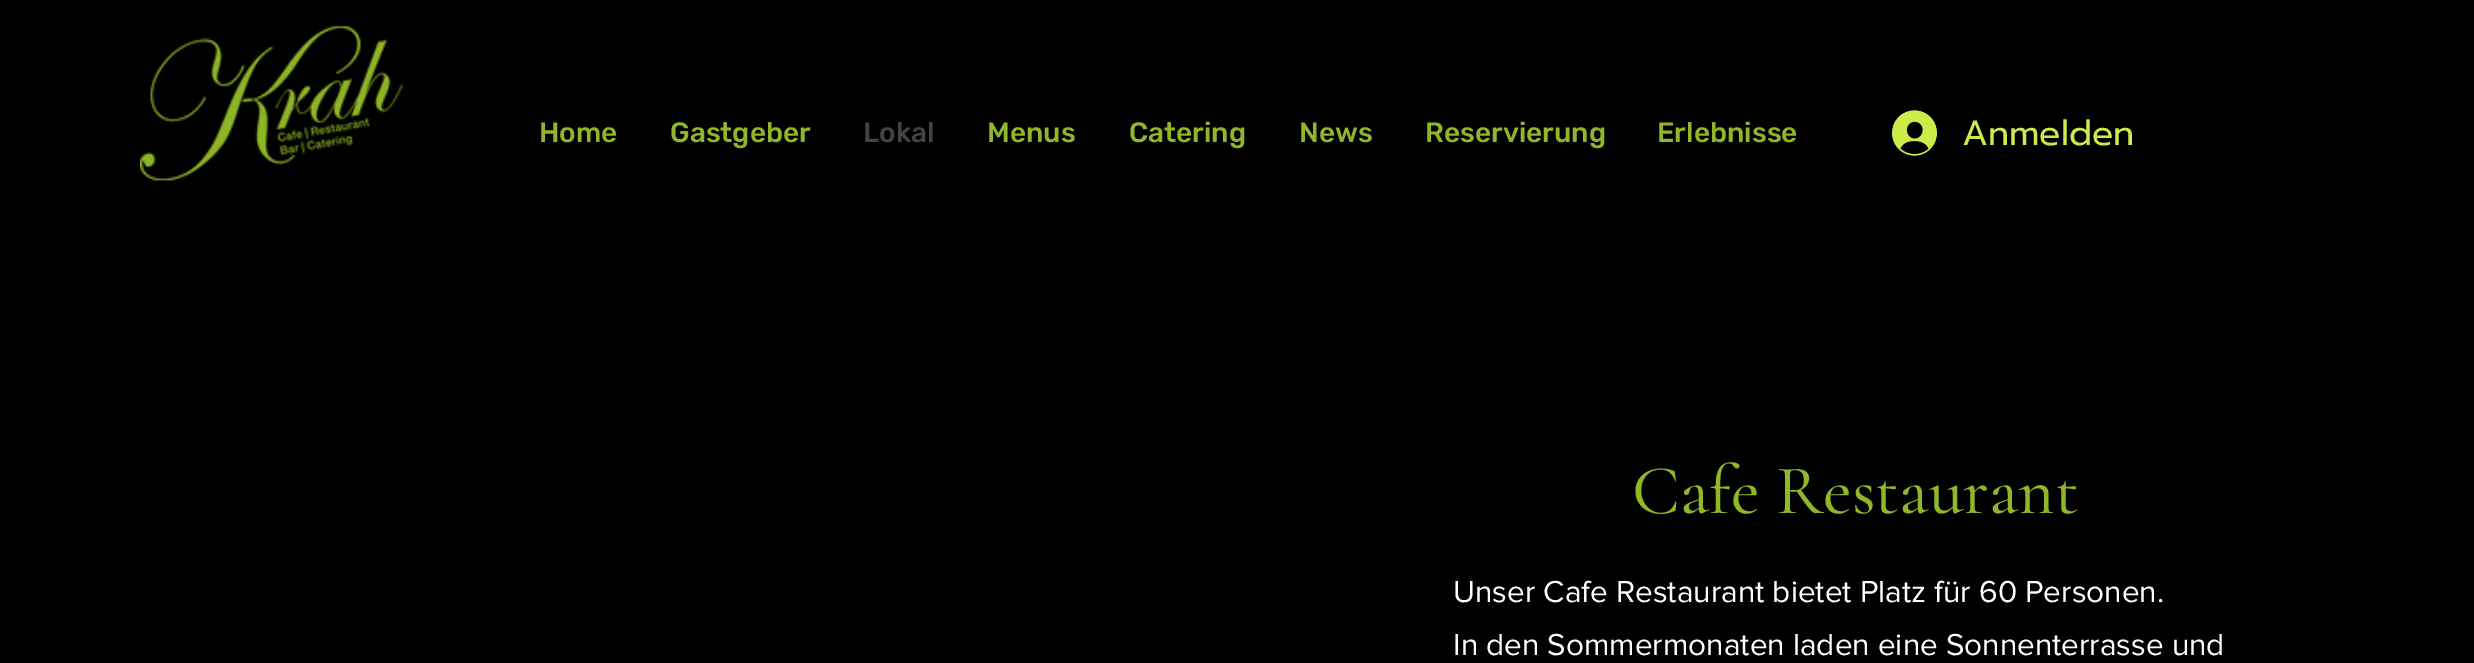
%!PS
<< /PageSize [2474 663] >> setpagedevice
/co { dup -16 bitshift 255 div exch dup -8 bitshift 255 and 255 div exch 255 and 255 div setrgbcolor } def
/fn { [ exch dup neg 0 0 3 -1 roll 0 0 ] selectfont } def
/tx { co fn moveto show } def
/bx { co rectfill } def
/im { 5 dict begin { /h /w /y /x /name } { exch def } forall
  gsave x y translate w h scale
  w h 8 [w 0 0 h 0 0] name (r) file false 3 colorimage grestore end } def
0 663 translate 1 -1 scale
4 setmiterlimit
0 0 2474 663 16#000000 bx
(media/1.raw) 140 25 263 156 im
(media/2.raw) 1892 110 45 46 im
(Home) 539 142 /Rubik-Medium 28 16#90B728 tx
(Gastgeber) 670 142 /Rubik-Medium 28 16#90B728 tx
(Lokal) 863 142 /Rubik-Medium 28 16#444444 tx
(Menus) 987 142 /Rubik-Medium 28 16#90B728 tx
(Catering) 1129 142 /Rubik-Medium 28 16#90B728 tx
(News) 1299 142 /Rubik-Medium 28 16#90B728 tx
(Reservierung) 1425 142 /Rubik-Medium 28 16#90B728 tx
(Erlebnisse) 1657 142 /Rubik-Medium 28 16#90B728 tx
(Anmelden) 1962 145 /Prompt-Regular 35 16#CEEB4C tx
(Cafe Restaurant) 1632 513 /CormorantGaramond-Medium 70 16#90B728 tx
(Unser Cafe Restaurant bietet Platz für 60 Personen.) 1453 602 /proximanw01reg-Regular 31.5 16#FFFFFF tx
(In den Sommermonaten laden eine Sonnenterrasse und) 1453 655 /proximanw01reg-Regular 31.5 16#FFFFFF tx
showpage
